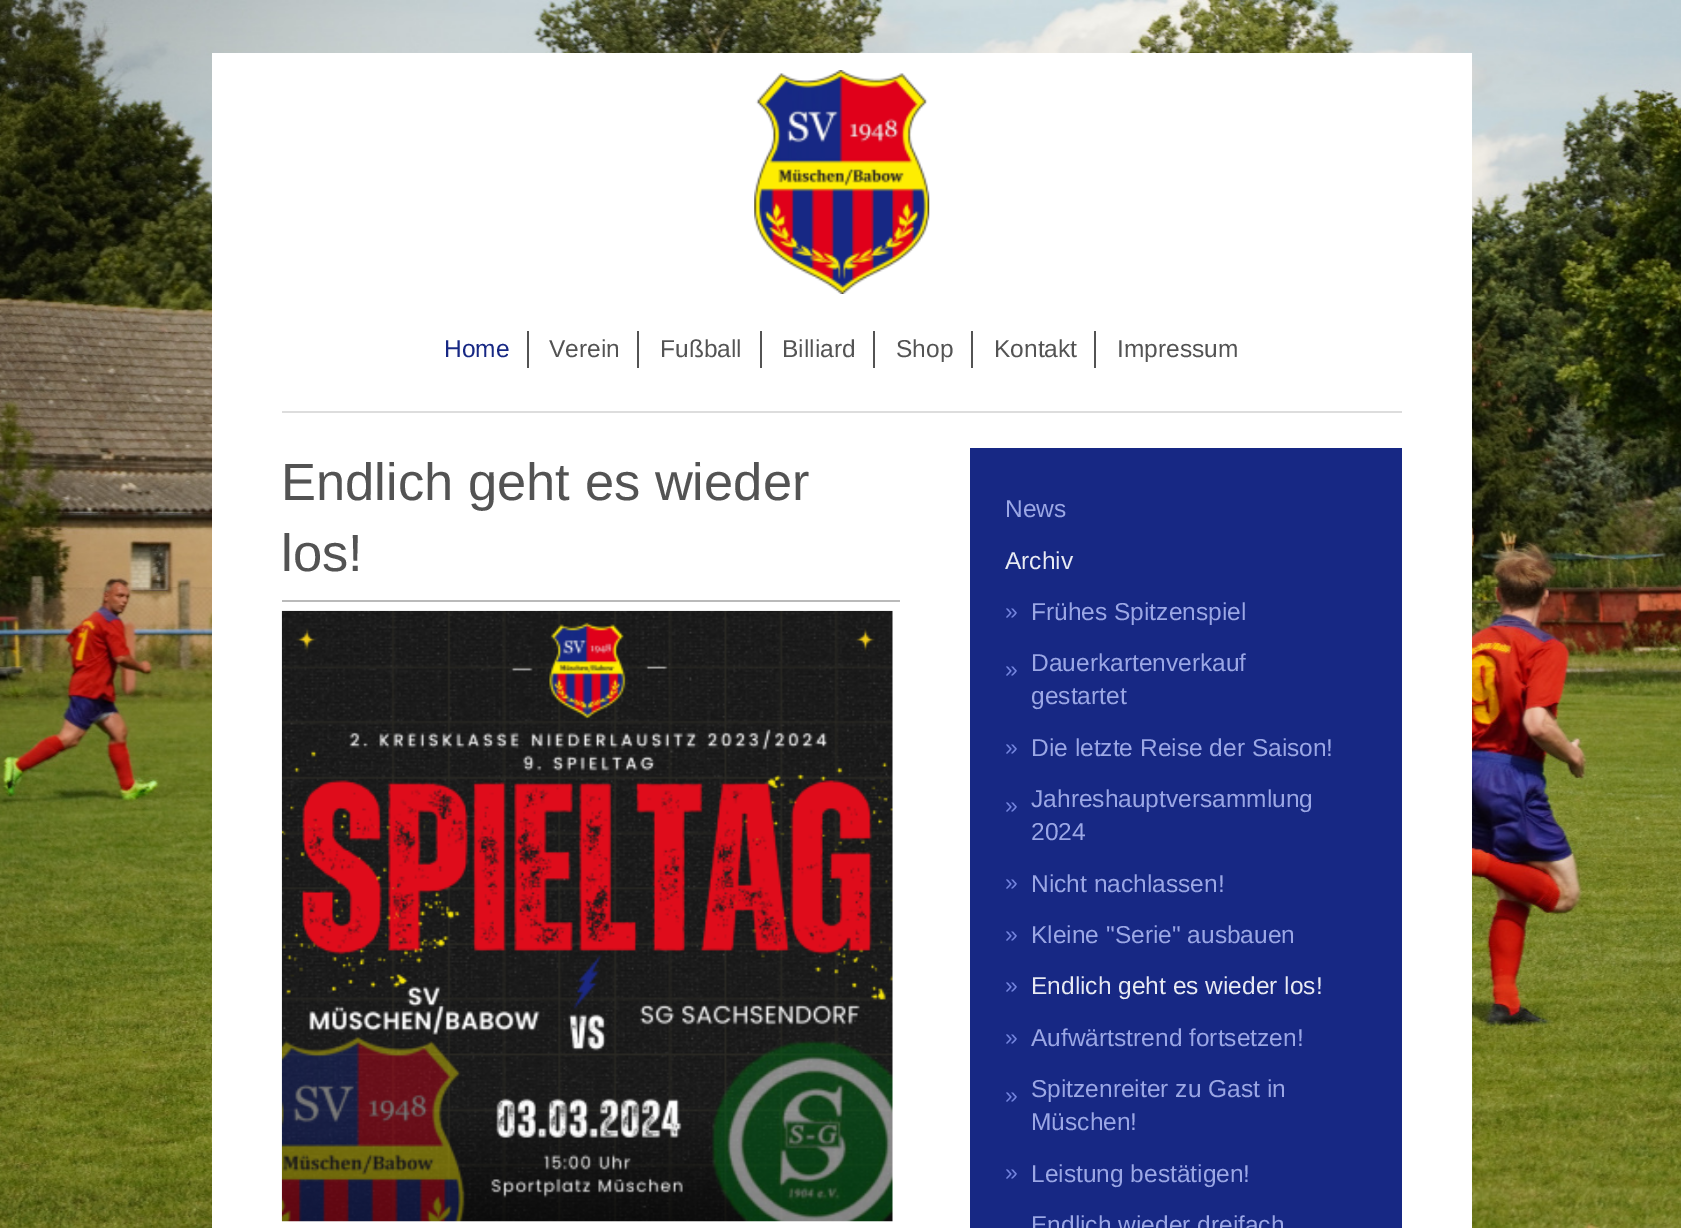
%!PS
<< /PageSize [1681 1228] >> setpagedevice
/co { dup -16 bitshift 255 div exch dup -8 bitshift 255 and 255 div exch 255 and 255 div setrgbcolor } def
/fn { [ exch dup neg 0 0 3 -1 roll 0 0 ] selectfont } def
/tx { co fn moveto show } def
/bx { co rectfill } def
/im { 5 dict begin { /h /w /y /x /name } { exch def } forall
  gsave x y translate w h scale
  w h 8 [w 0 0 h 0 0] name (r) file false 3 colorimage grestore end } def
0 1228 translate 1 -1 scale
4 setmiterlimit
0 0 1681 1228 16#FFFFFF bx
(media/1.raw) 0 0 1681 1228 im
212 53 1260 1175 16#FFFFFF bx
(media/2.raw) 754 70 176 224 im
282 411 1120 2 16#DDDDDD bx
527 331 2 37 16#535353 bx
637 331 2 37 16#535353 bx
760 331 2 37 16#535353 bx
873 331 2 37 16#535353 bx
971 331 2 37 16#535353 bx
1094 331 2 37 16#535353 bx
282 600 618 2 16#BABABA bx
(media/3.raw) 281 610 612 612 im
970 448 432 780 16#172884 bx
(Home) 444 357 /LiberationSans-Regular 24.5 16#172884 tx
(Verein) 549 357 /LiberationSans-Regular 24.5 16#535353 tx
(Fußball) 660 357 /LiberationSans-Regular 24.5 16#535353 tx
(Billiard) 782 357 /LiberationSans-Regular 24.5 16#535353 tx
(Shop) 896 357 /LiberationSans-Regular 24.5 16#535353 tx
(Kontakt) 994 357 /LiberationSans-Regular 24.5 16#535353 tx
(Impressum) 1117 357 /LiberationSans-Regular 24.5 16#535353 tx
(Endlich geht es wieder) 281 500 /LiberationSans-Regular 52.5 16#535353 tx
(los!) 281 571 /LiberationSans-Regular 52.5 16#535353 tx
(News) 1005 517 /LiberationSans-Regular 24.5 16#9BA7E5 tx
(Archiv) 1005 569 /LiberationSans-Regular 24.5 16#E8EAF3 tx
(») 1005 619 /LiberationSans-Regular 23 16#7485DF tx
(Frühes Spitzenspiel) 1031 620 /LiberationSans-Regular 24.5 16#9BA7E5 tx
(») 1005 677 /LiberationSans-Regular 23 16#7485DF tx
(Dauerkartenverkauf) 1031 671 /LiberationSans-Regular 24.5 16#9BA7E5 tx
(gestartet) 1031 704 /LiberationSans-Regular 24.5 16#9BA7E5 tx
(») 1005 755 /LiberationSans-Regular 23 16#7485DF tx
(Die letzte Reise der Saison!) 1031 756 /LiberationSans-Regular 24.5 16#9BA7E5 tx
(») 1005 813 /LiberationSans-Regular 23 16#7485DF tx
(Jahreshauptversammlung) 1031 807 /LiberationSans-Regular 24.5 16#9BA7E5 tx
(2024) 1031 840 /LiberationSans-Regular 24.5 16#9BA7E5 tx
(») 1005 890 /LiberationSans-Regular 23 16#7485DF tx
(Nicht nachlassen!) 1031 892 /LiberationSans-Regular 24.5 16#9BA7E5 tx
(») 1005 942 /LiberationSans-Regular 23 16#7485DF tx
(Kleine "Serie" ausbauen) 1031 943 /LiberationSans-Regular 24.5 16#9BA7E5 tx
(») 1005 993 /LiberationSans-Regular 23 16#7485DF tx
(Endlich geht es wieder los!) 1031 994 /LiberationSans-Regular 24.5 16#E8EAF3 tx
(») 1005 1045 /LiberationSans-Regular 23 16#7485DF tx
(Aufwärtstrend fortsetzen!) 1031 1046 /LiberationSans-Regular 24.5 16#9BA7E5 tx
(») 1005 1103 /LiberationSans-Regular 23 16#7485DF tx
(Spitzenreiter zu Gast in) 1031 1097 /LiberationSans-Regular 24.5 16#9BA7E5 tx
(Müschen!) 1031 1130 /LiberationSans-Regular 24.5 16#9BA7E5 tx
(») 1005 1180 /LiberationSans-Regular 23 16#7485DF tx
(Leistung bestätigen!) 1031 1182 /LiberationSans-Regular 24.5 16#9BA7E5 tx
(Endlich wieder dreifach) 1031 1233 /LiberationSans-Regular 24.5 16#9BA7E5 tx
showpage
